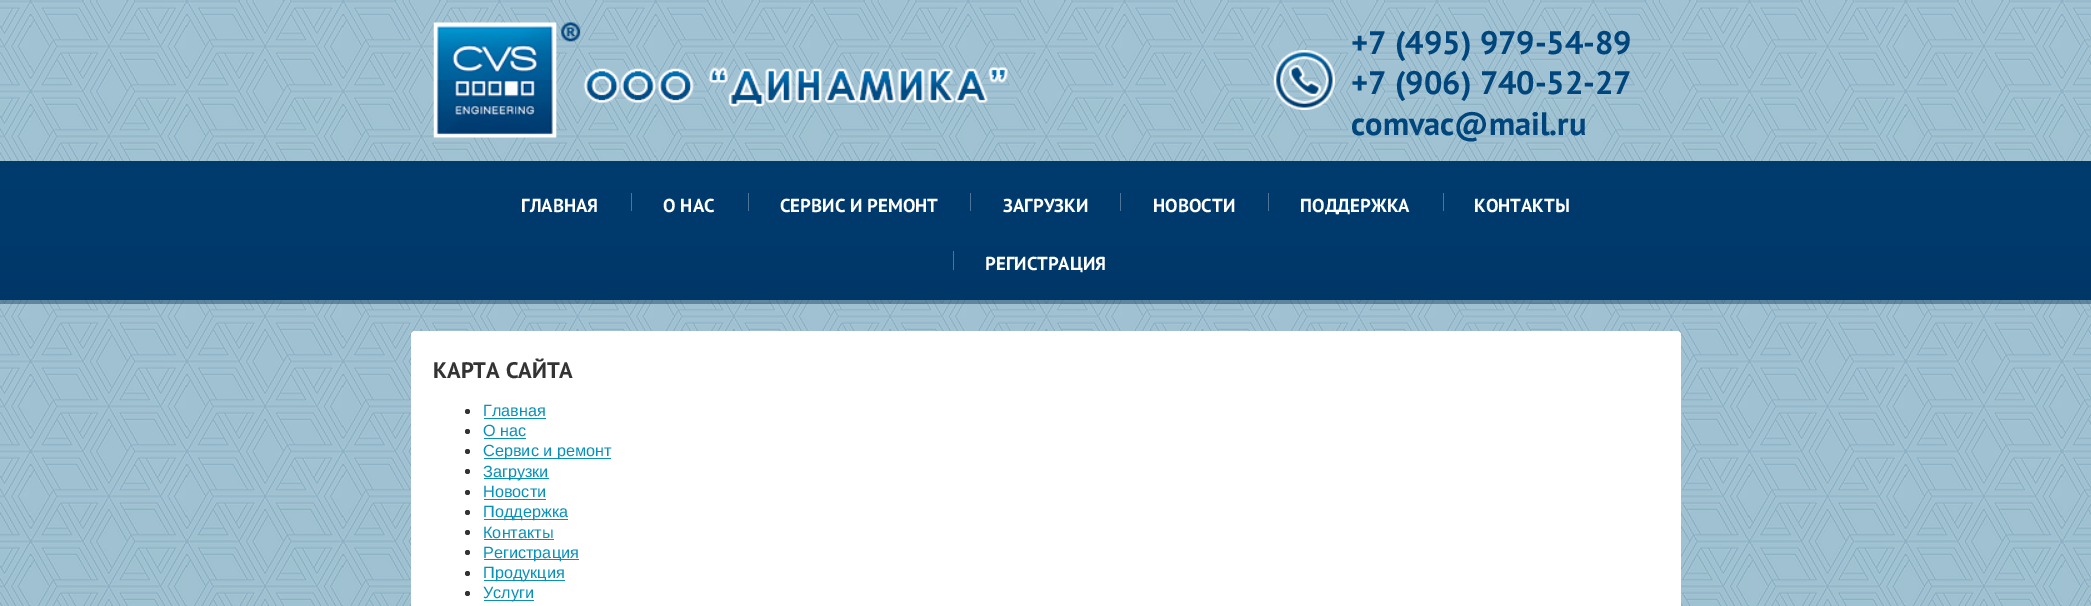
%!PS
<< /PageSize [2091 606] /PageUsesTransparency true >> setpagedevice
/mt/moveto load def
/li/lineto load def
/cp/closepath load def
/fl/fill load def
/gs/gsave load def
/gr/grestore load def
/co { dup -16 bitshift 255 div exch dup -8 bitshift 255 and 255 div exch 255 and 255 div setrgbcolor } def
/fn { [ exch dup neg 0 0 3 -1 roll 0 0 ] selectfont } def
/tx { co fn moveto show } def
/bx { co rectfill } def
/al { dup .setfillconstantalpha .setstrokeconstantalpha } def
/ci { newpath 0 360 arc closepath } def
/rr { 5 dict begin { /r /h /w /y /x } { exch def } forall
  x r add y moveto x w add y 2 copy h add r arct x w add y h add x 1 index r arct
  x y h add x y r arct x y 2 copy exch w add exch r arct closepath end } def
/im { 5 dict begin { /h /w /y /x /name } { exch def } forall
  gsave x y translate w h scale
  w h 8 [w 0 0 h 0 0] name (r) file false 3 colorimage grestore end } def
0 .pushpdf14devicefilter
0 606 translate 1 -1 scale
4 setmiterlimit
0 0 2091 606 16#FFFFFF bx
gs 0 0 mt 2091 0 li 2091 606 li 0 606 li cp clip newpath
<< /ShadingType 2 /ColorSpace /DeviceRGB /Coords [1046 0 1046 606] /Extend [true true] /Function << /FunctionType 2 /Domain [0 1] /C0 [.62 .753 .816] /C1 [.608 .741 .804] /N 1 >> >> shfill gr
(media/1.raw) 0 0 2091 606 im
(media/2.raw) 433 22 575 116 im
(media/3.raw) 1273 50 62 60 im
0.4 al
0 300 2091 4 16#002C53 bx
1 al
gs 0 161 mt 2091 161 li 2091 300 li 0 300 li cp clip newpath
<< /ShadingType 2 /ColorSpace /DeviceRGB /Coords [1046 161 1046 300] /Extend [true true] /Function << /FunctionType 2 /Domain [0 1] /C0 [0 .235 .435] /C1 [0 .216 .412] /N 1 >> >> shfill gr
631 193 1 18 16#4D7599 bx
748 193 1 18 16#4D7599 bx
970 193 1 18 16#4D7599 bx
1120 193 1 18 16#4D7599 bx
1268 193 1 18 16#4D7599 bx
1443 193 1 18 16#4D7599 bx
953 251 1 19 16#4D7497 bx
16#FFFFFF co
411 331 1270 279 4 rr fl
16#333333 co
467.5 411.5 2.5 ci fl
484 418 62 1 16#0790B8 bx
16#333333 co
467.5 431.5 2.5 ci fl
484 438 42 1 16#0790B8 bx
16#333333 co
467.5 451.5 2.5 ci fl
484 458 127 1 16#0790B8 bx
16#333333 co
467.5 471.5 2.5 ci fl
484 478 65 1 16#0790B8 bx
16#333333 co
467.5 492.5 2.5 ci fl
484 499 62 1 16#0790B8 bx
16#333333 co
467.5 512.5 2.5 ci fl
484 519 84 1 16#0790B8 bx
16#333333 co
467.5 532.5 2.5 ci fl
484 539 70 1 16#0790B8 bx
16#333333 co
467.5 552.5 2.5 ci fl
484 559 95 1 16#0790B8 bx
16#333333 co
467.5 573.5 2.5 ci fl
484 580 81 1 16#0790B8 bx
16#333333 co
467.5 593.5 2.5 ci fl
484 600 50 1 16#0790B8 bx
(+7 \(495\) 979-54-89) 1351 54 /PTSans-Bold 32.5 16#00467C tx
(+7 \(906\) 740-52-27) 1351 94 /PTSans-Bold 32.5 16#00467C tx
(comvac@mail.ru) 1351 135 /PTSans-Bold 32.5 16#00467C tx
(ГЛАВНАЯ) 521 212 /PTSans-Bold 18.75 16#FFFFFF tx
(О НАС) 663 212 /PTSans-Bold 18.75 16#FFFFFF tx
(СЕРВИС И РЕМОНТ) 780 212 /PTSans-Bold 18.75 16#FFFFFF tx
(ЗАГРУЗКИ) 1003 212 /PTSans-Bold 18.75 16#FFFFFF tx
(НОВОСТИ) 1153 212 /PTSans-Bold 18.75 16#FFFFFF tx
(ПОДДЕРЖКА) 1300 212 /PTSans-Bold 18.75 16#FFFFFF tx
(КОНТАКТЫ) 1474 212 /PTSans-Bold 18.75 16#FFFFFF tx
(РЕГИСТРАЦИЯ) 985 270 /PTSans-Bold 18.75 16#FFFFFF tx
(КАРТА САЙТА) 433 378 /PTSans-Bold 22.5 16#333333 tx
(Главная) 483 416 /LiberationSans-Regular 16.25 16#0790B8 tx
(О нас) 483 436 /LiberationSans-Regular 16.25 16#0790B8 tx
(Сервис и ремонт) 483 456 /LiberationSans-Regular 16.25 16#0790B8 tx
(Загрузки) 483 477 /LiberationSans-Regular 16.25 16#0790B8 tx
(Новости) 483 497 /LiberationSans-Regular 16.25 16#0790B8 tx
(Поддержка) 483 517 /LiberationSans-Regular 16.25 16#0790B8 tx
(Контакты) 483 538 /LiberationSans-Regular 16.25 16#0790B8 tx
(Регистрация) 483 558 /LiberationSans-Regular 16.25 16#0790B8 tx
(Продукция) 483 578 /LiberationSans-Regular 16.25 16#0790B8 tx
(Услуги) 483 598 /LiberationSans-Regular 16.25 16#0790B8 tx
.poppdf14devicefilter showpage
